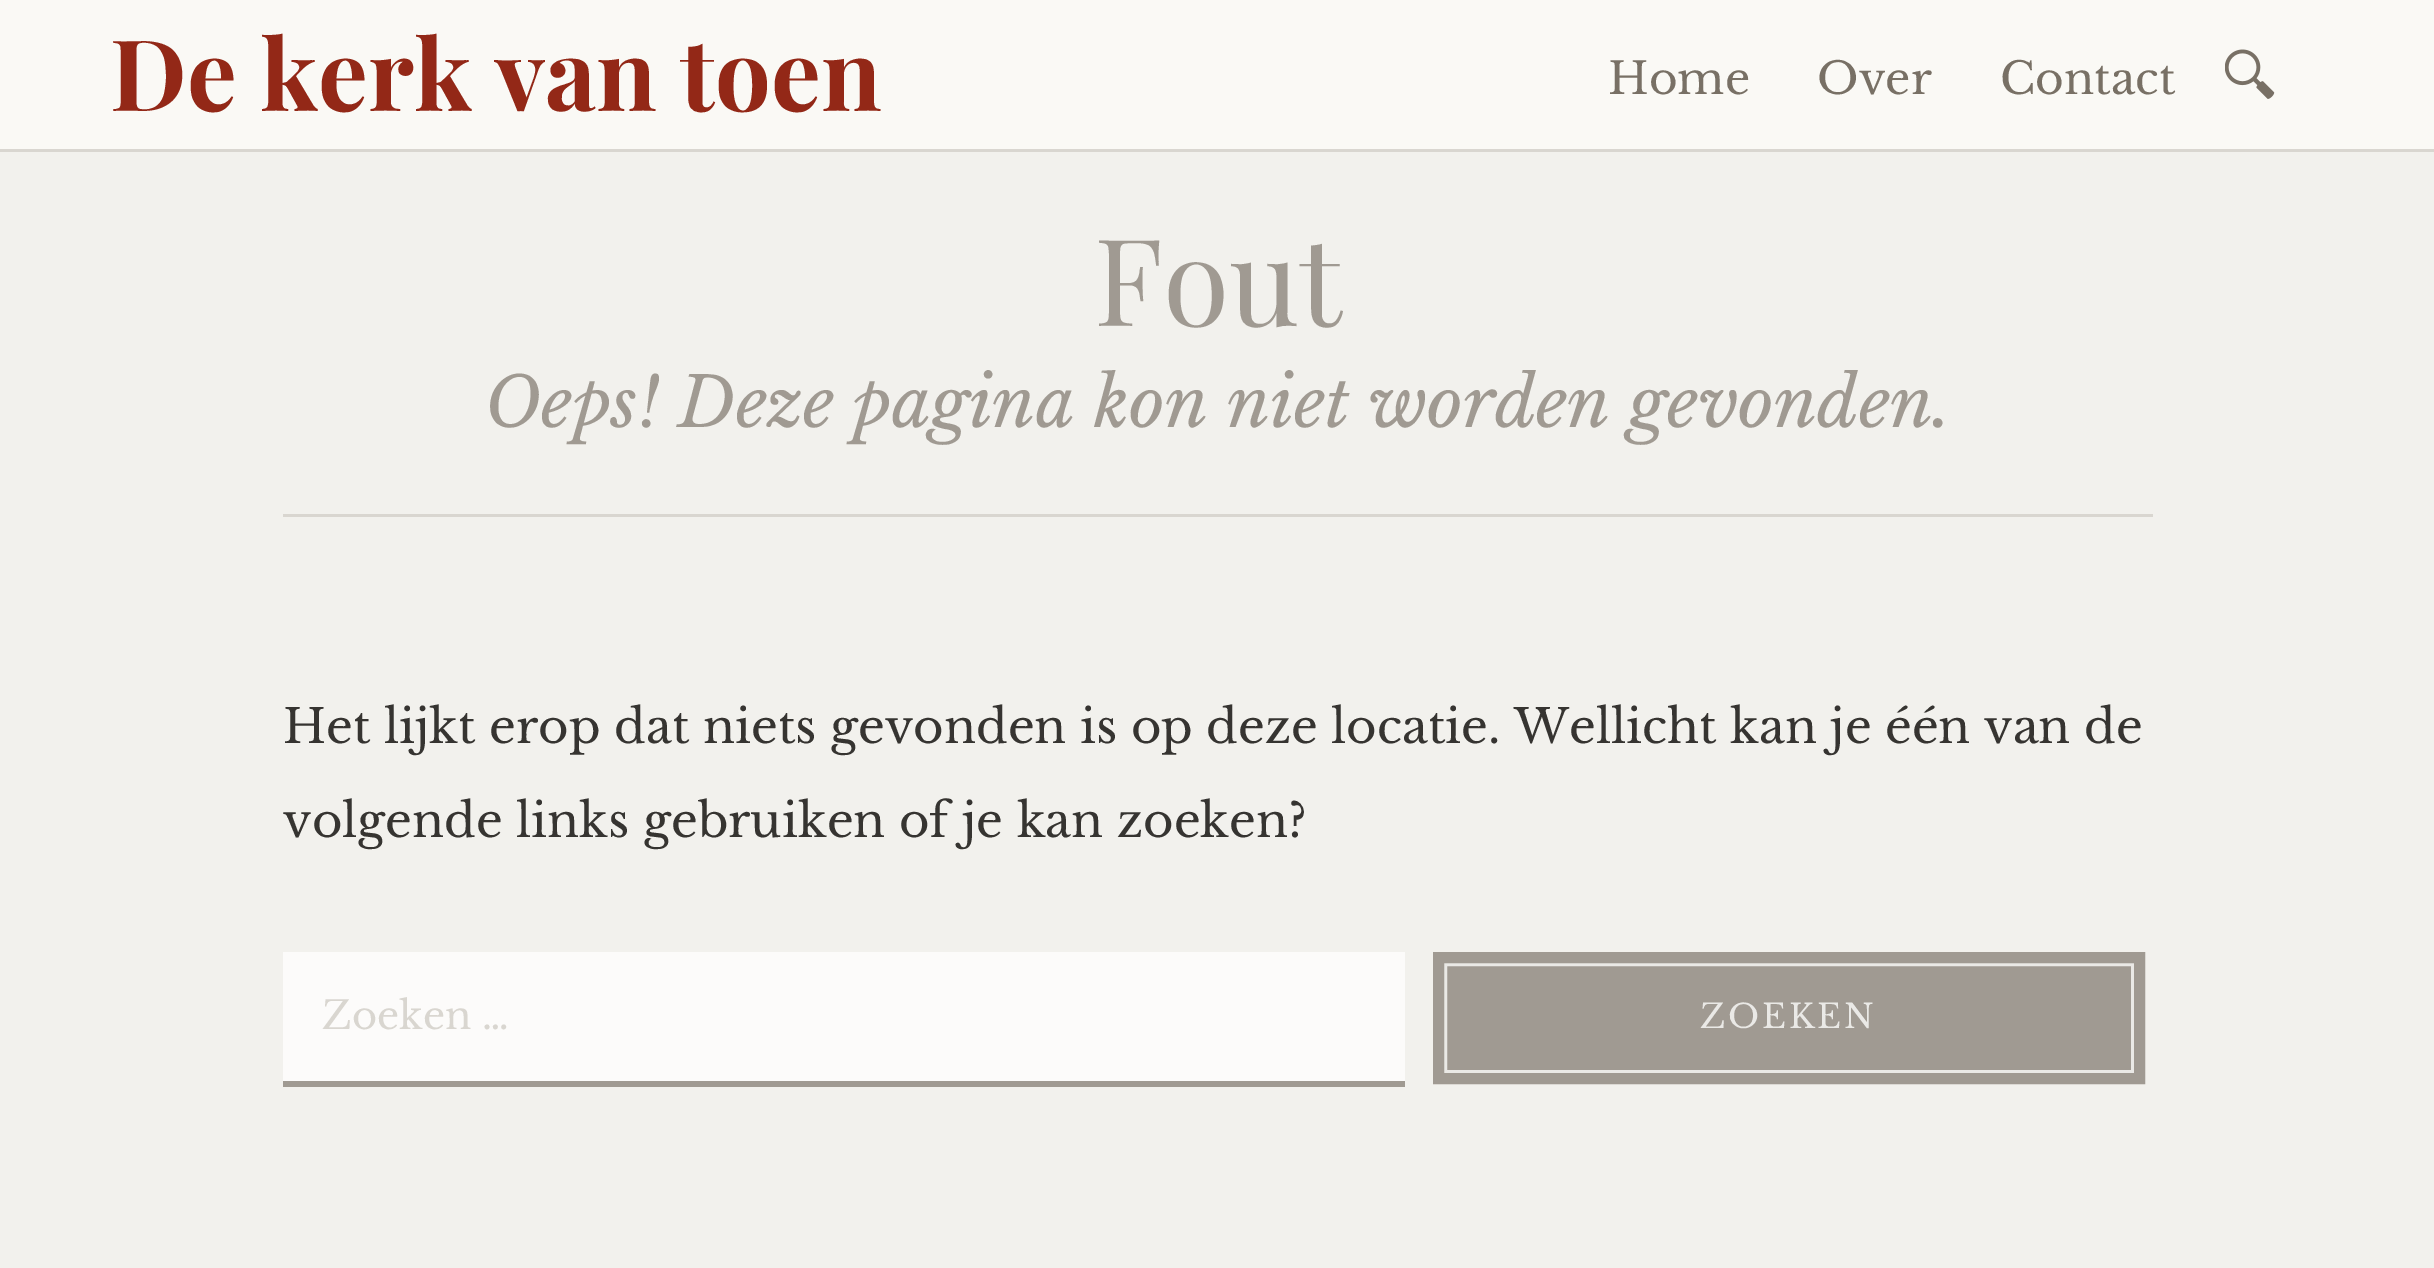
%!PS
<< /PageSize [2434 1268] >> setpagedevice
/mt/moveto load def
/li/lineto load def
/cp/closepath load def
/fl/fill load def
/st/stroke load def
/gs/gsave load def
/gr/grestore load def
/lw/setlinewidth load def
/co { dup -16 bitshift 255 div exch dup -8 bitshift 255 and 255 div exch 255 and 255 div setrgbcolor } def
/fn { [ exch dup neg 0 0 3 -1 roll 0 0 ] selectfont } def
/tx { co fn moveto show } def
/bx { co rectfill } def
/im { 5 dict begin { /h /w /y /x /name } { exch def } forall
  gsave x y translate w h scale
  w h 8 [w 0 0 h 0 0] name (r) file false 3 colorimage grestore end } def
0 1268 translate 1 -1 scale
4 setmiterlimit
0 0 2434 1268 16#F2F1ED bx
0 0 2434 149 16#FAF9F5 bx
0 149 2434 3 16#D9D6D0 bx
(media/1.raw) 2225 49 50 50 im
283 514 1870 3 16#D9D6D0 bx
283 952 1122 129 16#FCFBFA bx
283 1081 1122 6 16#A09A92 bx
1445.5 964.5 mt 2132.5 964.5 li 2132.5 1071.5 li 1445.5 1071.5 li cp gs fl gr
16#EAE9E6 co
3 lw
st
16#A09A92 co
11 lw
1438.5 957.5 701 121 rectstroke
(De kerk van toen) 110 111 /PlayfairDisplay-Bold 99 16#932817 tx
(Home) 1608 94 /LibreBaskerville-Regular 44 16#787065 tx
(Over) 1817 94 /LibreBaskerville-Regular 44 16#787065 tx
(Contact) 2000 94 /LibreBaskerville-Regular 44 16#787065 tx
(Fout) 1094 326 /PlayfairDisplay-Regular 121 16#A09A92 tx
(Oeps! Deze pagina kon niet worden gevonden.) 485 427 /LibreBaskerville-Italic 68.75 16#A09A92 tx
(Het lijkt erop dat niets gevonden is op deze locatie. Wellicht kan je één van de) 283 743 /LibreBaskerville-Regular 46.75 16#363431 tx
(volgende links gebruiken of je kan zoeken?) 283 837 /LibreBaskerville-Regular 46.75 16#363431 tx
(Zoeken …) 322 1029 /LibreBaskerville-Regular 38.5 16#D9D6D0 tx
/LibreBaskerville-Regular 33 fn
16#EAE9E6 co
1700 1028 mt 2.75 0 (ZOEKEN) ashow
showpage
